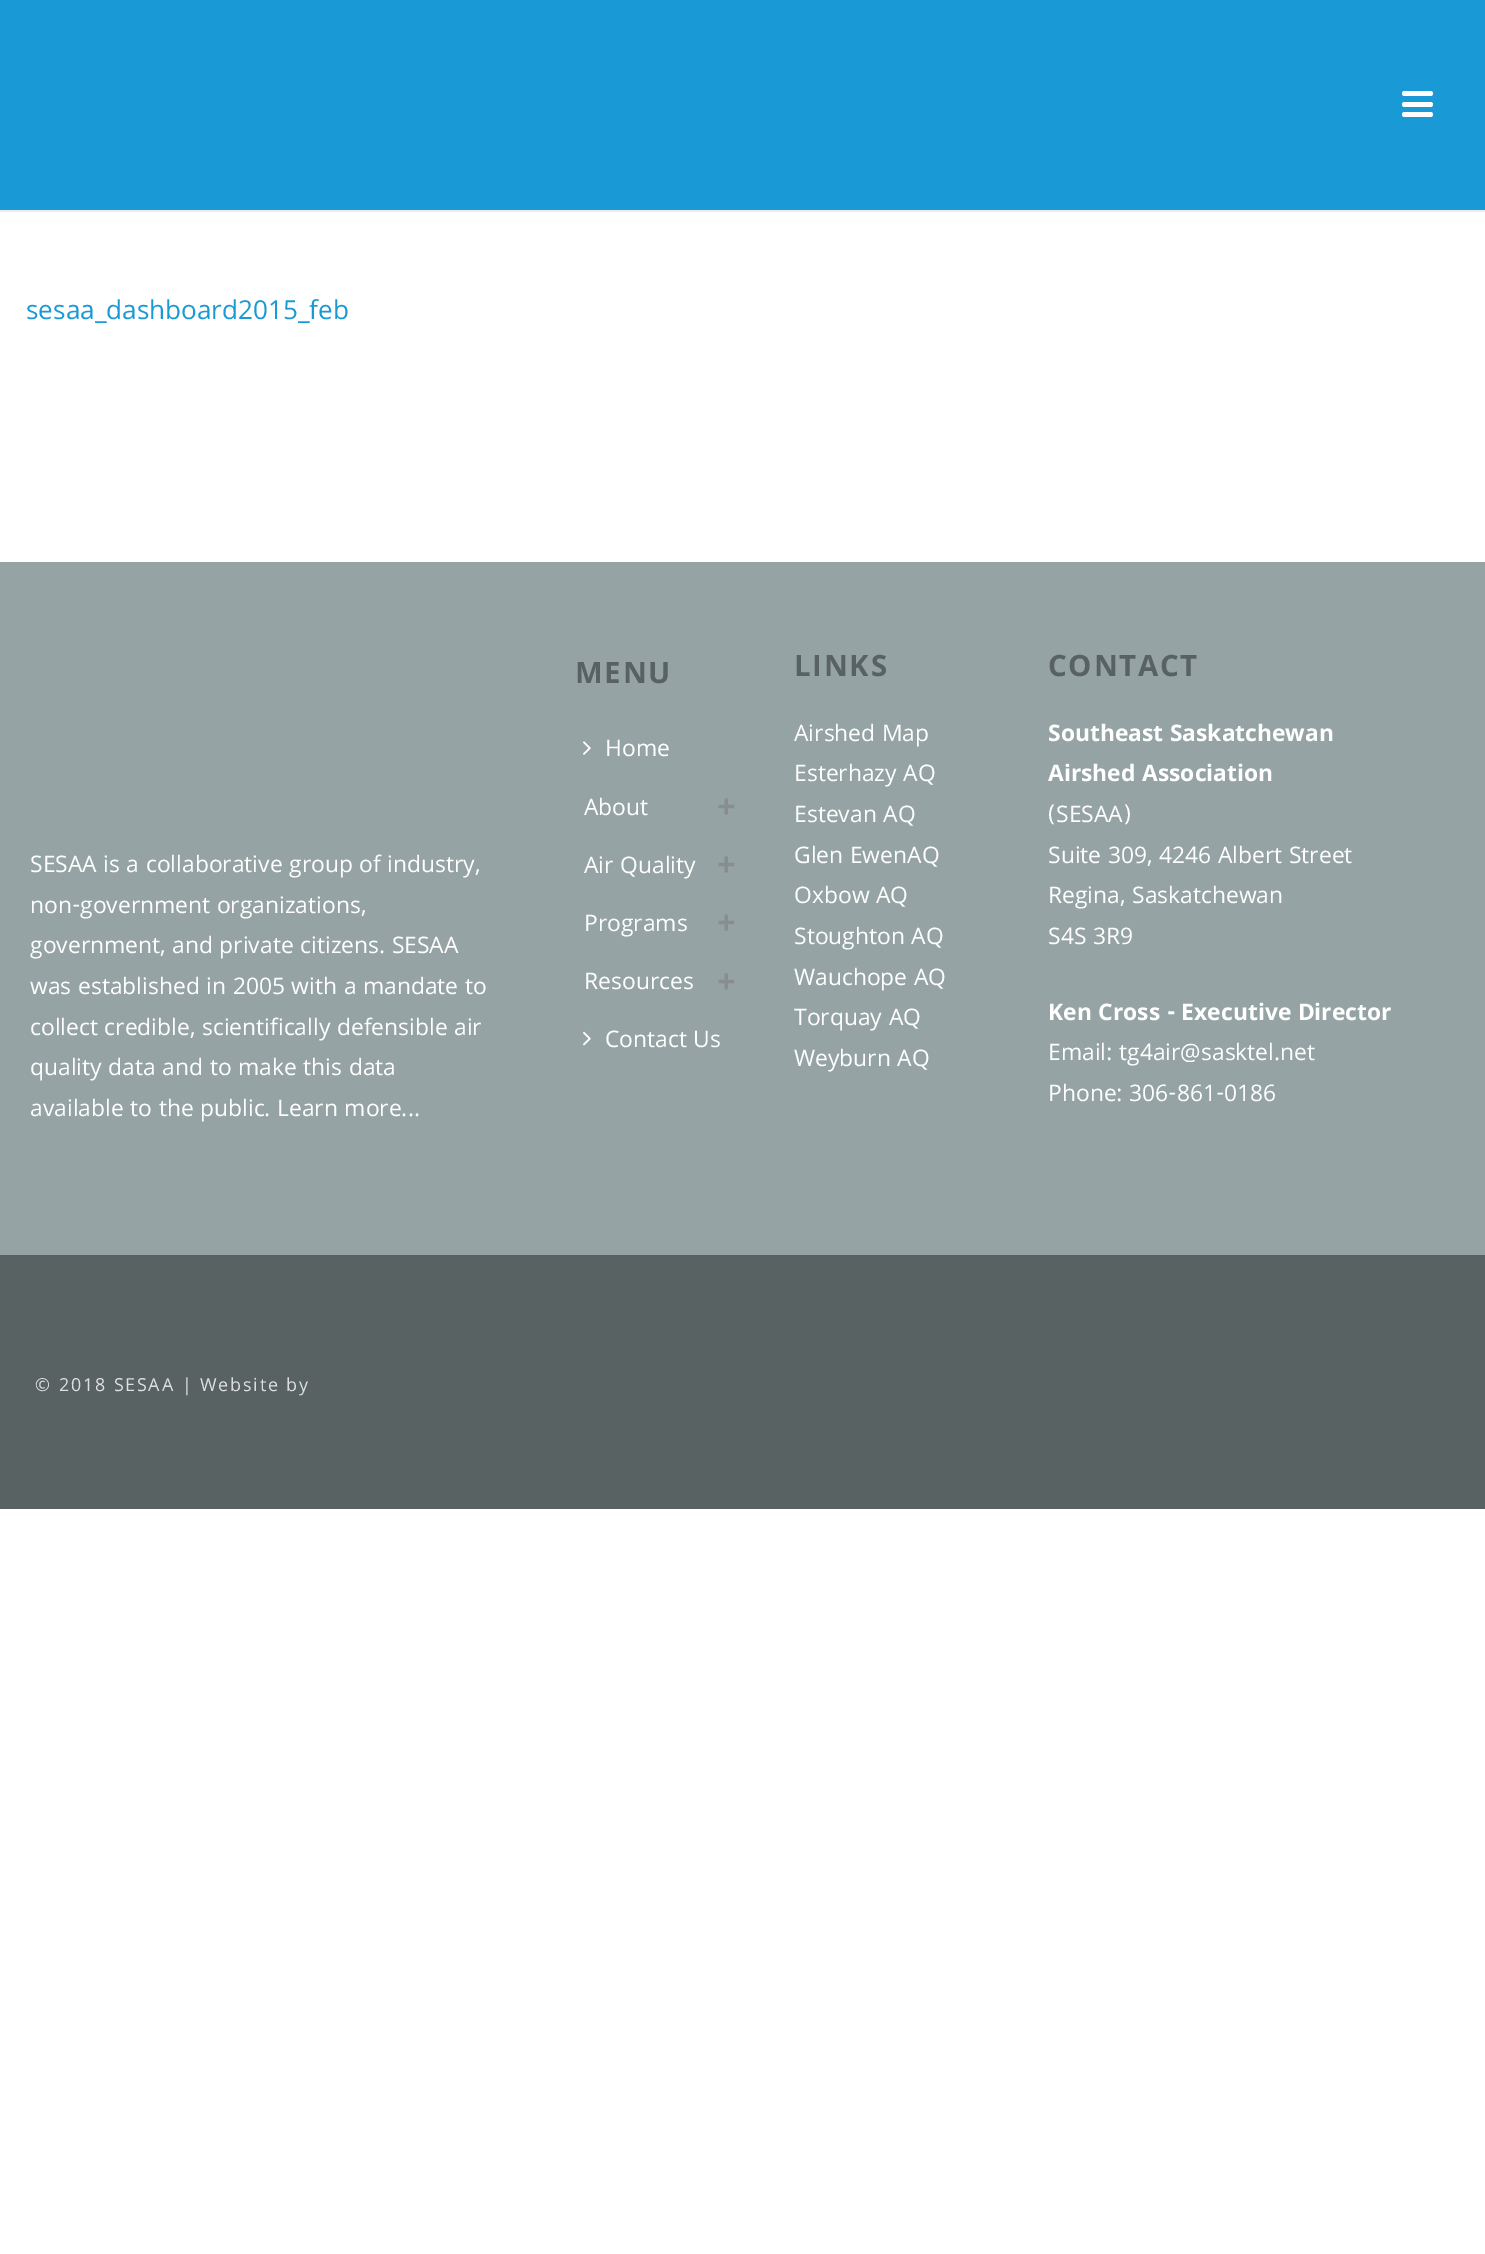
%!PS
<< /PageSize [1485 2254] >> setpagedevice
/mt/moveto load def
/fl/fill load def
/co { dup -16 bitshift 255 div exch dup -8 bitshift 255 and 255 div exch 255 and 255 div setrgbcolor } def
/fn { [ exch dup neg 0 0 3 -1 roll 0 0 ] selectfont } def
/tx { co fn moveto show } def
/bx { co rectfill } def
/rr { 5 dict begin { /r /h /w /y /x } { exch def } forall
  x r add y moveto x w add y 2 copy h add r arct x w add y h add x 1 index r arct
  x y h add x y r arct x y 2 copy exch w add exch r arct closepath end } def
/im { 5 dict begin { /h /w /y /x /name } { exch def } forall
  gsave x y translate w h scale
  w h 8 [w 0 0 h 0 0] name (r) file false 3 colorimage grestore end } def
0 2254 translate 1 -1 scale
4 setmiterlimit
0 0 1485 2254 16#FFFFFF bx
0 210 1485 2 16#EDEDED bx
0 0 1485 210 16#1A99D7 bx
16#FFFFFF co
1402 91 31 5 2.5 rr fl
1402 102 31 5 2.5 rr fl
1402 112 31 5 2.5 rr fl
0 562 1485 693 16#95A3A4 bx
(media/1.raw) 583 741 8 14 im
(media/2.raw) 583 1031 8 15 im
0 1255 1485 254 16#586263 bx
(sesaa_dashboard2015_feb) 26 319 /Khula-Regular 28 16#1A99D7 tx
(SESAA is a collaborative group of industry,) 30 872 /Khula-Regular 24.5 16#FFFFFF tx
(non-government organizations,) 30 913 /Khula-Regular 24.5 16#FFFFFF tx
(government, and private citizens. SESAA) 30 953 /Khula-Regular 24.5 16#FFFFFF tx
(was established in 2005 with a mandate to) 30 994 /Khula-Regular 24.5 16#FFFFFF tx
(collect credible, scientifically defensible air) 30 1035 /Khula-Regular 24.5 16#FFFFFF tx
(quality data and to make this data) 30 1075 /Khula-Regular 24.5 16#FFFFFF tx
(available to the public. Learn more...) 30 1116 /Khula-Regular 24.5 16#FFFFFF tx
/Khula-Bold 31.5 fn
16#586263 co
575 683 mt 1.75 0 (MENU) ashow
(Home) 605 756 /Khula-Regular 24.5 16#FFFFFF tx
(About) 584 815 /Khula-Regular 24.5 16#FFFFFF tx
(+) 717 818 /Khula-Bold 35 16#888E8E tx
(Air Quality) 584 873 /Khula-Regular 24.5 16#FFFFFF tx
(+) 717 876 /Khula-Bold 35 16#888E8E tx
(Programs) 584 931 /Khula-Regular 24.5 16#FFFFFF tx
(+) 717 934 /Khula-Bold 35 16#888E8E tx
(Resources) 584 989 /Khula-Regular 24.5 16#FFFFFF tx
(+) 717 993 /Khula-Bold 35 16#888E8E tx
(Contact Us) 605 1047 /Khula-Regular 24.5 16#FFFFFF tx
/Khula-Bold 31.5 fn
16#586263 co
794 676 mt 1.75 0 (LINKS) ashow
(Airshed Map) 794 741 /Khula-Regular 24.5 16#FFFFFF tx
(Esterhazy AQ) 794 781 /Khula-Regular 24.5 16#FFFFFF tx
(Estevan AQ) 794 822 /Khula-Regular 24.5 16#FFFFFF tx
(Glen EwenAQ) 794 863 /Khula-Regular 24.5 16#FFFFFF tx
(Oxbow AQ) 794 903 /Khula-Regular 24.5 16#FFFFFF tx
(Stoughton AQ) 794 944 /Khula-Regular 24.5 16#FFFFFF tx
(Wauchope AQ) 794 985 /Khula-Regular 24.5 16#FFFFFF tx
(Torquay AQ) 794 1025 /Khula-Regular 24.5 16#FFFFFF tx
(Weyburn AQ) 794 1066 /Khula-Regular 24.5 16#FFFFFF tx
/Khula-Bold 31.5 fn
16#586263 co
1048 676 mt 1.75 0 (CONTACT) ashow
(Southeast Saskatchewan) 1048 741 /Khula-Bold 24.5 16#FFFFFF tx
(Airshed Association) 1048 781 /Khula-Bold 24.5 16#FFFFFF tx
(\(SESAA\)) 1048 822 /Khula-Regular 24.5 16#FFFFFF tx
(Suite 309, 4246 Albert Street) 1048 863 /Khula-Regular 24.5 16#FFFFFF tx
(Regina, Saskatchewan) 1048 903 /Khula-Regular 24.5 16#FFFFFF tx
(S4S 3R9) 1048 944 /Khula-Regular 24.5 16#FFFFFF tx
(Ken Cross - Executive Director) 1048 1020 /Khula-Bold 24.5 16#FFFFFF tx
(Email: tg4air@sasktel.net) 1048 1060 /Khula-Regular 24.5 16#FFFFFF tx
(Phone: 306-861-0186) 1048 1101 /Khula-Regular 24.5 16#FFFFFF tx
/Khula-Regular 19.25 fn
16#DEE0E0 co
35 1391 mt 1.75 0 (© 2018 SESAA | Website by) ashow
showpage
